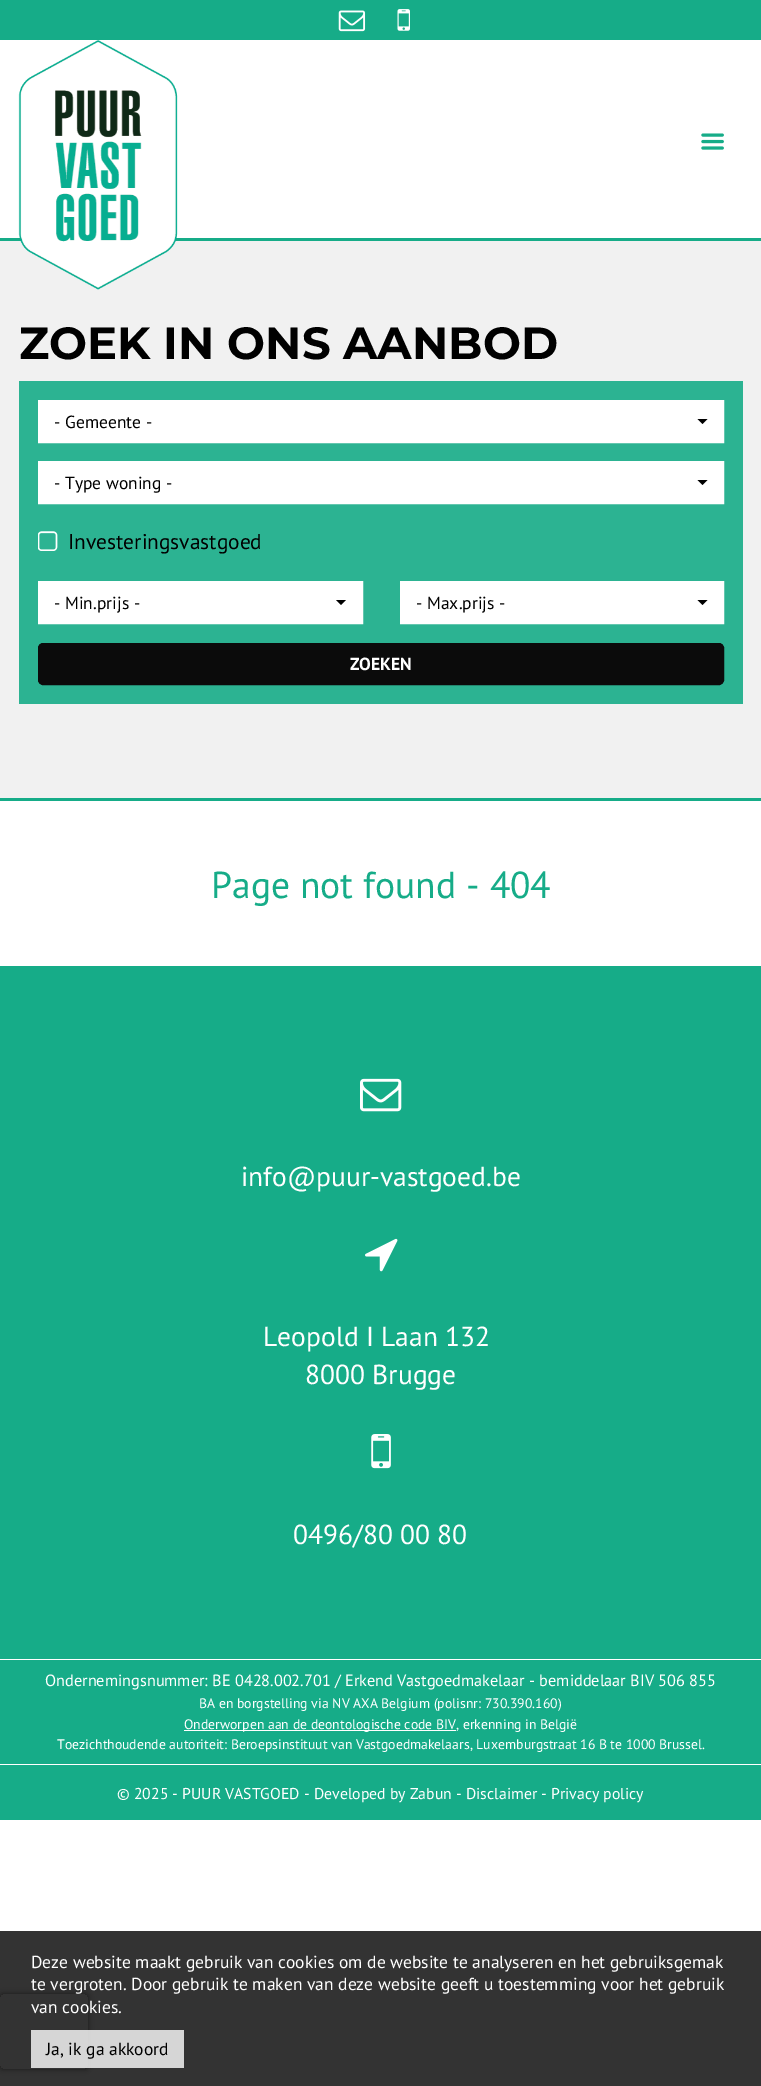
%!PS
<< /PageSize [761 2086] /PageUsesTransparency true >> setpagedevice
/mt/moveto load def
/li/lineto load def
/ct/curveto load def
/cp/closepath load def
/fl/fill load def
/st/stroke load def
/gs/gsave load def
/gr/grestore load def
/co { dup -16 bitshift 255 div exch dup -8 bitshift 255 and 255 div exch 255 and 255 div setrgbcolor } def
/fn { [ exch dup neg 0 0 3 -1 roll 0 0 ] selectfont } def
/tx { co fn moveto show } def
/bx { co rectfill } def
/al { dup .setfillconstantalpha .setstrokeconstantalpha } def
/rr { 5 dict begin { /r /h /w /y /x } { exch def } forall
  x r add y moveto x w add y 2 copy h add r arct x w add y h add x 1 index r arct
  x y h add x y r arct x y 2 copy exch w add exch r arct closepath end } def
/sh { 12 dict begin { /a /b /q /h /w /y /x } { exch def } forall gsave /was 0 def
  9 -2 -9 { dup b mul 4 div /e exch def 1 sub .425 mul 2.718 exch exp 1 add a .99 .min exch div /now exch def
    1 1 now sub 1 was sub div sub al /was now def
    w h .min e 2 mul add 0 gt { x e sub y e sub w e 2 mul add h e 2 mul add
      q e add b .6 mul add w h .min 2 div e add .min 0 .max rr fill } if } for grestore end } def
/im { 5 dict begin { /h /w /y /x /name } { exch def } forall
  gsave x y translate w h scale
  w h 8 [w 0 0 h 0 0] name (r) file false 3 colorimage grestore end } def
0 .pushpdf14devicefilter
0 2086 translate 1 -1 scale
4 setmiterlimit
0 0 761 2086 16#FFFFFF bx
0 1931 761 155 16#333333 bx
0 0 761 40 16#16AC88 bx
(media/1.raw) 338 10 28 22 im
(media/2.raw) 397 9 13 22 im
0 238 761 3 16#16AC88 bx
0 241 761 557 16#F1F1F1 bx
(media/3.raw) 18 40 160 250 im
(media/4.raw) 701 133 23 17 im
0 798 761 3 16#16AC88 bx
19 381 724 323 16#2CB392 bx
16#FFFFFF co
38.5 400.5 mt 723.5 400.5 li 723.5 442.5 li 38.5 442.5 li cp gs fl gr
st
16#000000 co
697.5 419 mt 707.5 419 li 702.5 424 li cp fl
16#FFFFFF co
38.5 461.5 mt 723.5 461.5 li 723.5 503.5 li 38.5 503.5 li cp gs fl gr
st
16#000000 co
697.5 480 mt 707.5 480 li 702.5 485 li cp fl
(media/5.raw) 38 531 20 20 im
16#FFFFFF co
38.5 581.5 mt 362.5 581.5 li 362.5 623.5 li 38.5 623.5 li cp gs fl gr
st
16#000000 co
336 600 mt 346 600 li 341 605 li cp fl
16#FFFFFF co
400.5 581.5 mt 723.5 581.5 li 723.5 623.5 li 400.5 623.5 li cp gs fl gr
st
16#000000 co
697.5 600 mt 707.5 600 li 702.5 605 li cp fl
16#0B0B0B co
38.5 643.5 685 41 4.5 rr gs fl gr
st
0 966 761 854 16#16AC88 bx
(media/6.raw) 360 1078 42 34 im
(media/7.raw) 365 1238 33 34 im
(media/8.raw) 371 1434 20 35 im
0 1659 761 1 16#FFFFFF bx
184 1730 272 1 16#FFFFFF bx
0 1764 761 1 16#FFFFFF bx
gs
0 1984 mt 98 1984 li 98 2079 li 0 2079 li cp 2.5 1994 mt 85.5 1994 li 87 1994 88 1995 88 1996.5 ct 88 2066.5 li 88 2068 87 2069 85.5 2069 ct 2.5 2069 li 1 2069 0 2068 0 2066.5 ct 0 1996.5 li 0 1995 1 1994 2.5 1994 ct cp eoclip newpath
16#1A1A1A co
0 1994 88 75 2.5 3 1 sh
gr
0.8 al
31 2030 153 38 16#FFFFFF bx
1 al
(ZOEK IN ONS AANBOD) 19 359 /Montserrat-Bold 45 16#000000 tx
(- Gemeente -) 54 428 /PTSans-Regular 17.5 16#000000 tx
(- Type woning -) 54 489 /PTSans-Regular 17.5 16#000000 tx
(Investeringsvastgoed) 68 549 /PTSans-Regular 21.4 16#000000 tx
(- Min.prijs -) 54 609 /PTSans-Regular 17.5 16#000000 tx
(- Max.prijs -) 416 609 /PTSans-Regular 17.5 16#000000 tx
(ZOEKEN) 350 670 /PTSans-Bold 17.5 16#FFFFFF tx
(Page not found - 404) 211 898 /PTSans-Regular 37.5 16#16AC88 tx
(info@puur-vastgoed.be) 241 1186 /PTSans-Regular 27.5 16#FFFFFF tx
(Leopold I Laan 132) 263 1346 /PTSans-Regular 27.5 16#FFFFFF tx
(8000 Brugge) 305 1384 /PTSans-Regular 27.5 16#FFFFFF tx
(0496/80 00 80) 293 1544 /PTSans-Regular 27.5 16#FFFFFF tx
(Ondernemingsnummer: BE 0428.002.701 / Erkend Vastgoedmakelaar - bemiddelaar BIV 506 855) 45 1686 /PTSans-Regular 16.25 16#FFFFFF tx
(BA en borgstelling via NV AXA Belgium \(polisnr: 730.390.160\)) 199 1708 /PTSans-Regular 13.75 16#FFFFFF tx
(Onderworpen aan de deontologische code BIV, erkenning in België) 184 1729 /PTSans-Regular 13.75 16#FFFFFF tx
(Toezichthoudende autoriteit: Beroepsinstituut van Vastgoedmakelaars, Luxemburgstraat 16 B te 1000 Brussel.) 57 1749 /PTSans-Regular 13.75 16#FFFFFF tx
(© 2025 - PUUR VASTGOED - Developed by Zabun - Disclaimer - Privacy policy) 117 1799 /PTSans-Regular 15.75 16#FFFFFF tx
(Deze website maakt gebruik van cookies om de website te analyseren en het gebruiksgemak) 31 1968 /PTSans-Regular 17.5 16#FFFFFF tx
(te vergroten. Door gebruik te maken van deze website geeft u toestemming voor het gebruik) 31 1990 /PTSans-Regular 17.5 16#FFFFFF tx
(van cookies.) 31 2013 /PTSans-Regular 17.5 16#FFFFFF tx
(Ja, ik ga akkoord) 46 2055 /PTSans-Regular 17.5 16#000000 tx
.poppdf14devicefilter showpage
